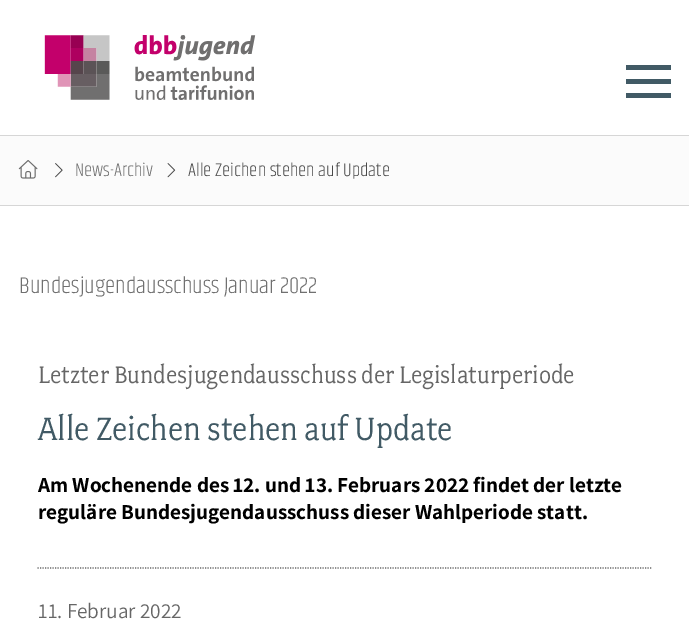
%!PS
<< /PageSize [689 626] >> setpagedevice
/mt/moveto load def
/li/lineto load def
/st/stroke load def
/lw/setlinewidth load def
/co { dup -16 bitshift 255 div exch dup -8 bitshift 255 and 255 div exch 255 and 255 div setrgbcolor } def
/fn { [ exch dup neg 0 0 3 -1 roll 0 0 ] selectfont } def
/tx { co fn moveto show } def
/bx { co rectfill } def
/im { 5 dict begin { /h /w /y /x /name } { exch def } forall
  gsave x y translate w h scale
  w h 8 [w 0 0 h 0 0] name (r) file false 3 colorimage grestore end } def
0 626 translate 1 -1 scale
4 setmiterlimit
0 0 689 626 16#FFFFFF bx
0 135 689 1 16#D6D6D6 bx
(media/1.raw) 44 35 212 65 im
626 65 45 5 16#415A65 bx
626 79 45 5 16#415A65 bx
626 93 45 5 16#415A65 bx
0 136 689 69 16#FBFBFB bx
0 205 689 1 16#D6D6D6 bx
(media/2.raw) 18 160 20 19 im
(media/3.raw) 55 163 8 15 im
(media/4.raw) 167 163 9 15 im
16#666666 co
1.2 lw
[1.25 1.25] 0 setdash
37.5 568 mt 652.5 568 li st
(News-Archiv) 75 176 /Khand-Light 18.75 16#707070 tx
(Alle Zeichen stehen auf Update) 188 176 /Khand-Light 18.75 16#494949 tx
(Bundesjugendausschuss Januar 2022) 19 293 /Khand-Light 23.4 16#707070 tx
(Letzter Bundesjugendausschuss der Legislaturperiode) 38 383 /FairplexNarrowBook-Regular 26.75 16#666666 tx
(Alle Zeichen stehen auf Update) 38 440 /FairplexNarrowBook-Regular 36.1 16#415A65 tx
(Am Wochenende des 12. und 13. Februars 2022 findet der letzte) 38 492 /Assistant-Bold 21.25 16#000000 tx
(reguläre Bundesjugendausschuss dieser Wahlperiode statt.) 38 519 /Assistant-Bold 21.25 16#000000 tx
(11. Februar 2022) 38 618 /Assistant-Regular 21.25 16#666666 tx
showpage
